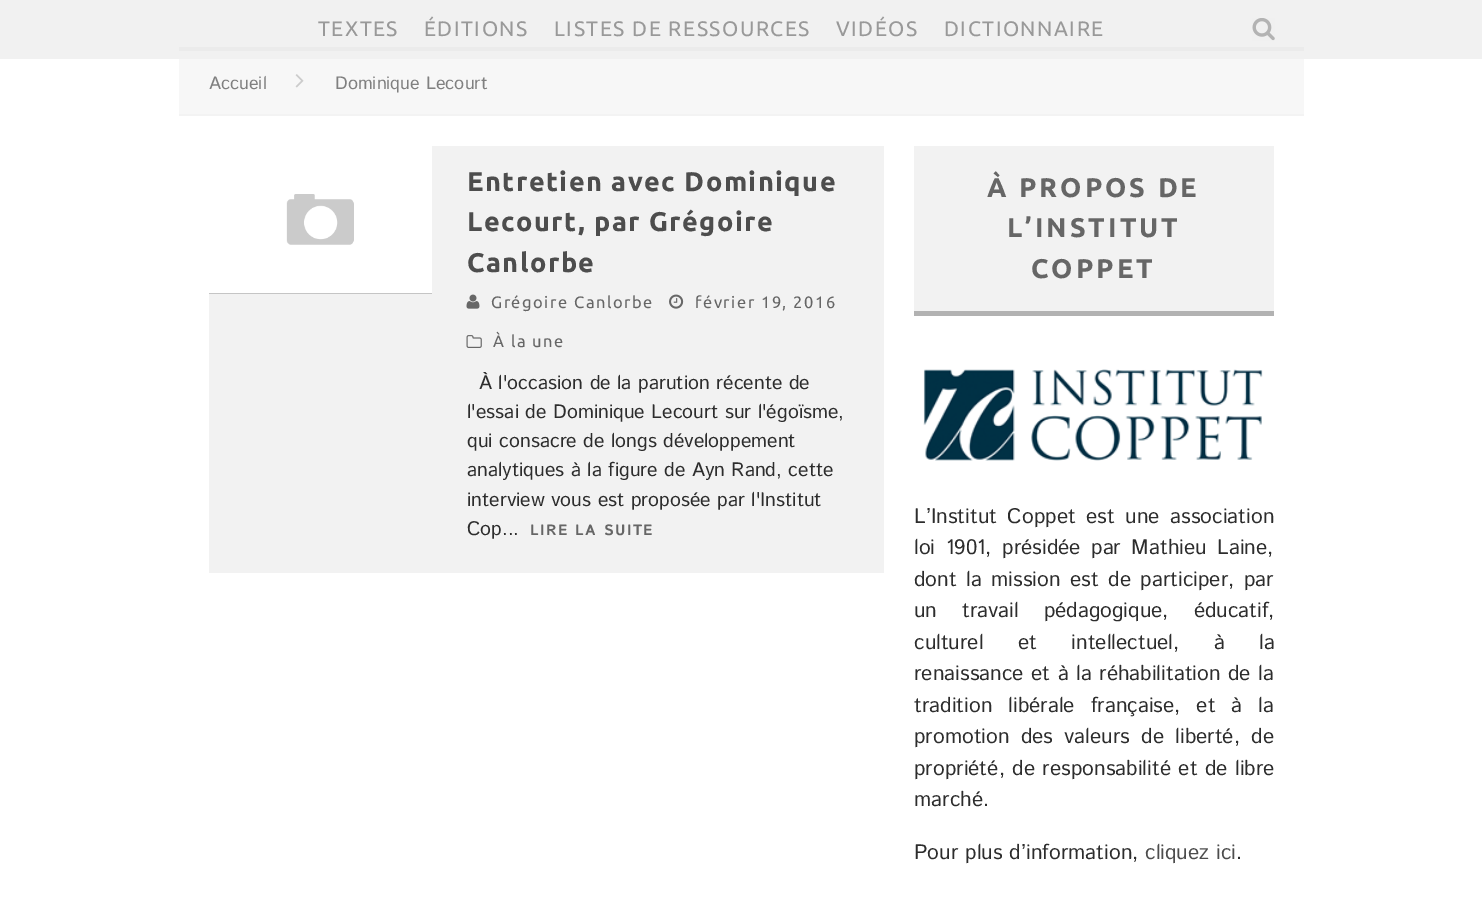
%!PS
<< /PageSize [1482 920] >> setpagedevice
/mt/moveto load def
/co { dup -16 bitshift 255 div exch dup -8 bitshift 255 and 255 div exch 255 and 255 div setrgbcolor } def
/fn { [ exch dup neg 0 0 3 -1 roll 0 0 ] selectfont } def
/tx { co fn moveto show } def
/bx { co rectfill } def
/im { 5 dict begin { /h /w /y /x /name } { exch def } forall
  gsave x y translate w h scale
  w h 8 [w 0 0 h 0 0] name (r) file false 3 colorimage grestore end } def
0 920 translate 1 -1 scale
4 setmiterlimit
0 0 1482 920 16#FFFFFF bx
0 0 1482 59 16#F1F1F1 bx
(media/1.raw) 1252 18 23 23 im
179 47 1125 4 16#EBEBEB bx
179 59 1125 55 16#F7F7F7 bx
179 114 1125 2 16#F3F3F3 bx
(media/2.raw) 295 74 9 14 im
209 146 675 427 16#F2F2F2 bx
209 293 223 1 16#B2B2B2 bx
(media/3.raw) 209 146 223 148 im
(media/4.raw) 466 294 14 15 im
(media/5.raw) 669 294 15 15 im
(media/6.raw) 466 335 16 13 im
914 146 360 165 16#F2F2F2 bx
914 311 360 5 16#B2B2B2 bx
(media/7.raw) 923 369 340 92 im
/Ubuntu-Regular 21 fn
16#999999 co
318 36 mt 1.5 0 (TEXTES) ashow
424 36 mt 1.5 0 (ÉDITIONS) ashow
554 36 mt 1.5 0 (LISTES DE RESSOURCES) ashow
836 36 mt 1.5 0 (VIDÉOS) ashow
944 36 mt 1.5 0 (DICTIONNAIRE) ashow
(Accueil) 209 89 /IstokWeb-Regular 18 16#808080 tx
(Dominique Lecourt) 335 89 /IstokWeb-Regular 18 16#808080 tx
/Ubuntu-Bold 27 fn
16#4D4D4D co
467 191 mt 1.5 0 (Entretien avec Dominique) ashow
467 231 mt 1.5 0 (Lecourt, par Grégoire) ashow
467 272 mt 1.5 0 (Canlorbe) ashow
/Ubuntu-Regular 16.5 fn
16#666666 co
491 308 mt 1.5 0 (Grégoire Canlorbe) ashow
695 308 mt 1.5 0 (février 19, 2016) ashow
493 347 mt 1.5 0 (À la une) ashow
(À l'occasion de la parution récente de) 479 389 /IstokWeb-Regular 19.5 16#2D2D2D tx
(l'essai de Dominique Lecourt sur l'égoïsme,) 467 418 /IstokWeb-Regular 19.5 16#2D2D2D tx
(qui consacre de longs développement) 467 447 /IstokWeb-Regular 19.5 16#2D2D2D tx
(analytiques à la figure de Ayn Rand, cette) 467 476 /IstokWeb-Regular 19.5 16#2D2D2D tx
(interview vous est proposée par l'Institut) 467 506 /IstokWeb-Regular 19.5 16#2D2D2D tx
(Cop...) 467 535 /IstokWeb-Regular 19.5 16#2D2D2D tx
/IstokWeb-Bold 15 fn
16#666666 co
530 535 mt 1.5 0 (LIRE LA SUITE) ashow
/Ubuntu-Bold 27 fn
987 197 mt 3 0 (À PROPOS DE) ashow
1007 237 mt 3 0 (L’INSTITUT) ashow
1031 278 mt 3 0 (COPPET) ashow
/IstokWeb-Regular 21 fn
16#2D2D2D co
914 523 mt 3.5 0 32 (L’Institut Coppet est une association) widthshow
914 554 mt 3.5 0 32 (loi 1901, présidée par Mathieu Laine,) widthshow
914 586 mt 2.5 0 32 (dont la mission est de participer, par) widthshow
914 617 mt 18 0 32 (un travail pédagogique, éducatif,) widthshow
914 649 mt 27.5 0 32 (culturel et intellectuel, à la) widthshow
914 680 mt .5 0 32 (renaissance et à la réhabilitation de la) widthshow
914 712 mt 9 0 32 (tradition libérale française, et à la) widthshow
914 743 mt 4.25 0 32 (promotion des valeurs de liberté, de) widthshow
914 775 mt .5 0 32 (propriété, de responsabilité et de libre) widthshow
(marché.) 914 806 /IstokWeb-Regular 21 16#2D2D2D tx
(Pour plus d’information,) 914 859 /IstokWeb-Regular 21 16#2D2D2D tx
(cliquez ici) 1145 859 /IstokWeb-Regular 21 16#4D4D4D tx
(.) 1236 859 /IstokWeb-Regular 21 16#2D2D2D tx
showpage
